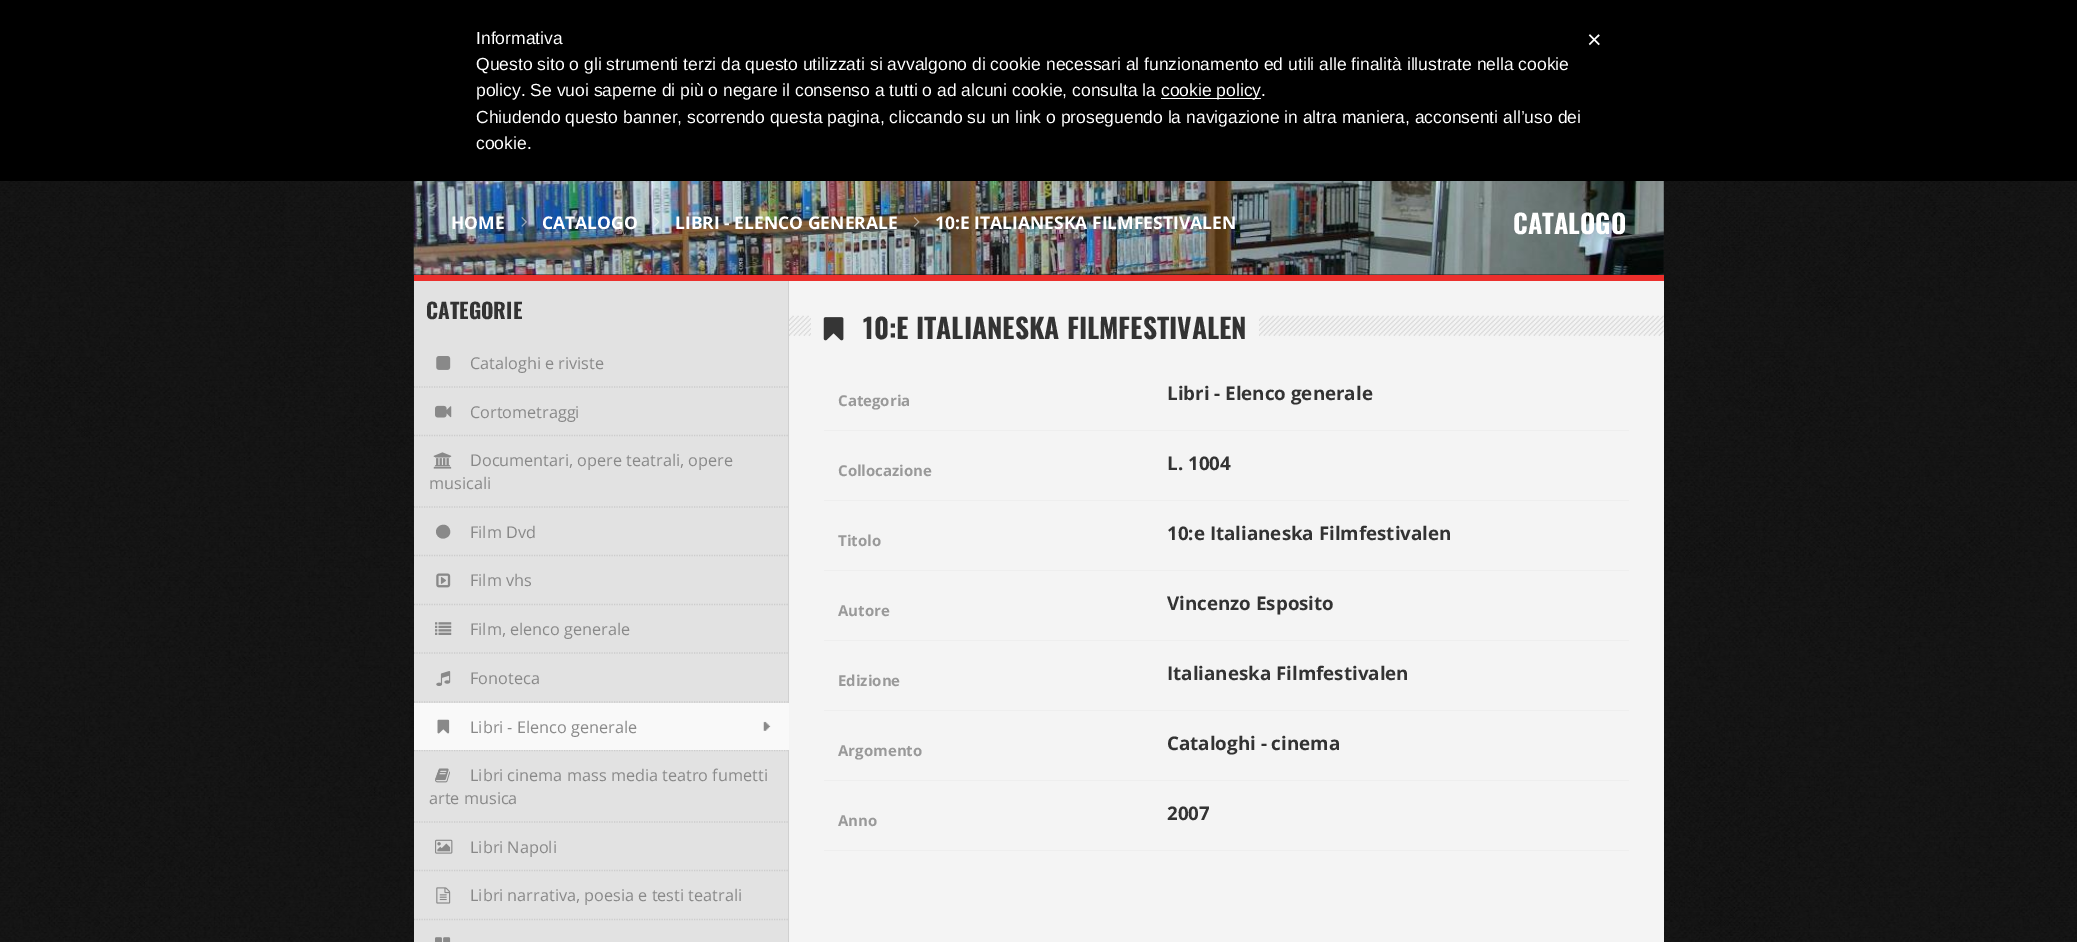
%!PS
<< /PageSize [2077 942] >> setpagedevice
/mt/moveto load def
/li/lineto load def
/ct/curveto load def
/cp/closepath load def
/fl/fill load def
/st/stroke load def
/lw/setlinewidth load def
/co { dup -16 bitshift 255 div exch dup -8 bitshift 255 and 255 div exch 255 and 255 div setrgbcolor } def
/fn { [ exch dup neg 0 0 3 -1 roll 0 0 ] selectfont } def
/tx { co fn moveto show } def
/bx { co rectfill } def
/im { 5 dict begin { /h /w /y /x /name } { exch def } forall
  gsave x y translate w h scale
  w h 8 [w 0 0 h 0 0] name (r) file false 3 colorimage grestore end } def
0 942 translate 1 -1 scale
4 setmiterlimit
0 0 2077 942 16#FFFFFF bx
0 0 2077 181 16#000000 bx
1161 98 100 1 16#FFFFFF bx
(media/1.raw) 0 181 2077 761 im
(media/2.raw) 284 181 1510 391 im
(media/3.raw) 413 181 1251 94 im
(media/4.raw) 521 217 6 10 im
(media/5.raw) 654 217 6 10 im
(media/6.raw) 914 217 6 10 im
789 281 875 661 16#F4F4F4 bx
414 281 374 661 16#E2E2E2 bx
788 275 1 667 16#D0D0D0 bx
414 275 1250 6 16#EC2F2C bx
16#CCCCCC co
1.2 lw
[1.25 1.25] 0 setdash
414 387 mt 789 387 li st
(media/7.raw) 436 356 15 14 im
414 435.5 mt 789 435.5 li st
(media/8.raw) 435 405 17 13 im
414 507 mt 789 507 li st
(media/9.raw) 433 452 19 17 im
414 555.5 mt 789 555.5 li st
16#898989 co
449 528 mt 454 536 442 543 437 535 ct 432.5 527.5 444.5 520.5 449 528 ct cp fl
16#CCCCCC co
414 604.5 mt 789 604.5 li st
(media/10.raw) 436 573 15 15 im
414 653 mt 789 653 li st
(media/11.raw) 435 622 17 13 im
414 702 mt 789 702 li st
(media/12.raw) 436 671 15 15 im
414 750.5 mt 789 750.5 li st
414 703 375 47 16#F9F9F9 bx
(media/13.raw) 763 721 8 10 im
(media/14.raw) 437 719 13 15 im
16#CCCCCC co
414 822 mt 789 822 li st
(media/15.raw) 435 768 15 15 im
414 870.5 mt 789 870.5 li st
(media/16.raw) 435 839 18 15 im
414 919.5 mt 789 919.5 li st
(media/17.raw) 436 887 15 17 im
(media/18.raw) 435 937 16 5 im
(media/19.raw) 789 315 875 21 im
811 315 448 21 16#F4F4F4 bx
(media/20.raw) 823 317 21 24 im
824 430 805 1 16#EEEEEE bx
824 500 805 1 16#EEEEEE bx
824 570 805 1 16#EEEEEE bx
824 640 805 1 16#EEEEEE bx
824 710 805 1 16#EEEEEE bx
824 780 805 1 16#EEEEEE bx
824 850 805 1 16#EEEEEE bx
(Informativa) 476 44 /LiberationSans-Regular 17.5 16#FFFFFF tx
(Questo sito o gli strumenti terzi da questo utilizzati si avvalgono di cookie necessari al funzionamento ed utili alle finalità illustrate nella cookie) 476 70 /LiberationSans-Regular 17.5 16#FFFFFF tx
(policy. Se vuoi saperne di più o negare il consenso a tutti o ad alcuni cookie, consulta la) 476 96 /LiberationSans-Regular 17.5 16#FFFFFF tx
(cookie policy.) 1161 96 /LiberationSans-Regular 17.5 16#FFFFFF tx
(Chiudendo questo banner, scorrendo questa pagina, cliccando su un link o proseguendo la navigazione in altra maniera, acconsenti all’uso dei) 476 123 /LiberationSans-Regular 17.5 16#FFFFFF tx
(cookie.) 476 149 /LiberationSans-Regular 17.5 16#FFFFFF tx
(×) 1587 48 /LiberationSans-Regular 25 16#FFFFFF tx
(HOME) 451 229 /OpenSans-Bold 17.5 16#FFFFFF tx
(CATALOGO) 542 229 /OpenSans-Bold 17.5 16#FFFFFF tx
(LIBRI - ELENCO GENERALE) 675 229 /OpenSans-Bold 17.5 16#FFFFFF tx
(10:E ITALIANESKA FILMFESTIVALEN) 935 229 /OpenSans-Bold 17.5 16#FFFFFF tx
(CATALOGO) 1513 234 /Oswald-Bold 26.25 16#FFFFFF tx
(CATEGORIE) 426 319 /Oswald-Bold 21.25 16#333333 tx
(Cataloghi e riviste) 470 369 /OpenSans-Regular 16.25 16#898989 tx
(Cortometraggi) 470 418 /OpenSans-Regular 16.25 16#898989 tx
(Documentari, opere teatrali, opere) 470 466 /OpenSans-Regular 16.25 16#898989 tx
(musicali) 429 489 /OpenSans-Regular 16.25 16#898989 tx
(Film Dvd) 470 538 /OpenSans-Regular 16.25 16#898989 tx
(Film vhs) 470 586 /OpenSans-Regular 16.25 16#898989 tx
(Film, elenco generale) 470 635 /OpenSans-Regular 16.25 16#898989 tx
(Fonoteca) 470 684 /OpenSans-Regular 16.25 16#898989 tx
(Libri - Elenco generale) 470 733 /OpenSans-Regular 16.25 16#898989 tx
(Libri cinema mass media teatro fumetti) 470 781 /OpenSans-Regular 16.25 16#898989 tx
(arte musica) 429 804 /OpenSans-Regular 16.25 16#898989 tx
(Libri Napoli) 470 853 /OpenSans-Regular 16.25 16#898989 tx
(Libri narrativa, poesia e testi teatrali) 470 901 /OpenSans-Regular 16.25 16#898989 tx
(10:E ITALIANESKA FILMFESTIVALEN) 863 339 /Oswald-Bold 27.5 16#333333 tx
(Categoria) 838 406 /OpenSans-Bold 15 16#999999 tx
(Libri - Elenco generale) 1167 400 /OpenSans-Bold 18.75 16#333333 tx
(Collocazione) 838 476 /OpenSans-Bold 15 16#999999 tx
(L. 1004) 1167 470 /OpenSans-Bold 18.75 16#333333 tx
(Titolo) 838 546 /OpenSans-Bold 15 16#999999 tx
(10:e Italianeska Filmfestivalen) 1167 540 /OpenSans-Bold 18.75 16#333333 tx
(Autore) 838 616 /OpenSans-Bold 15 16#999999 tx
(Vincenzo Esposito) 1167 610 /OpenSans-Bold 18.75 16#333333 tx
(Edizione) 838 686 /OpenSans-Bold 15 16#999999 tx
(Italianeska Filmfestivalen) 1167 680 /OpenSans-Bold 18.75 16#333333 tx
(Argomento) 838 756 /OpenSans-Bold 15 16#999999 tx
(Cataloghi - cinema) 1167 750 /OpenSans-Bold 18.75 16#333333 tx
(Anno) 838 826 /OpenSans-Bold 15 16#999999 tx
(2007) 1167 820 /OpenSans-Bold 18.75 16#333333 tx
showpage
